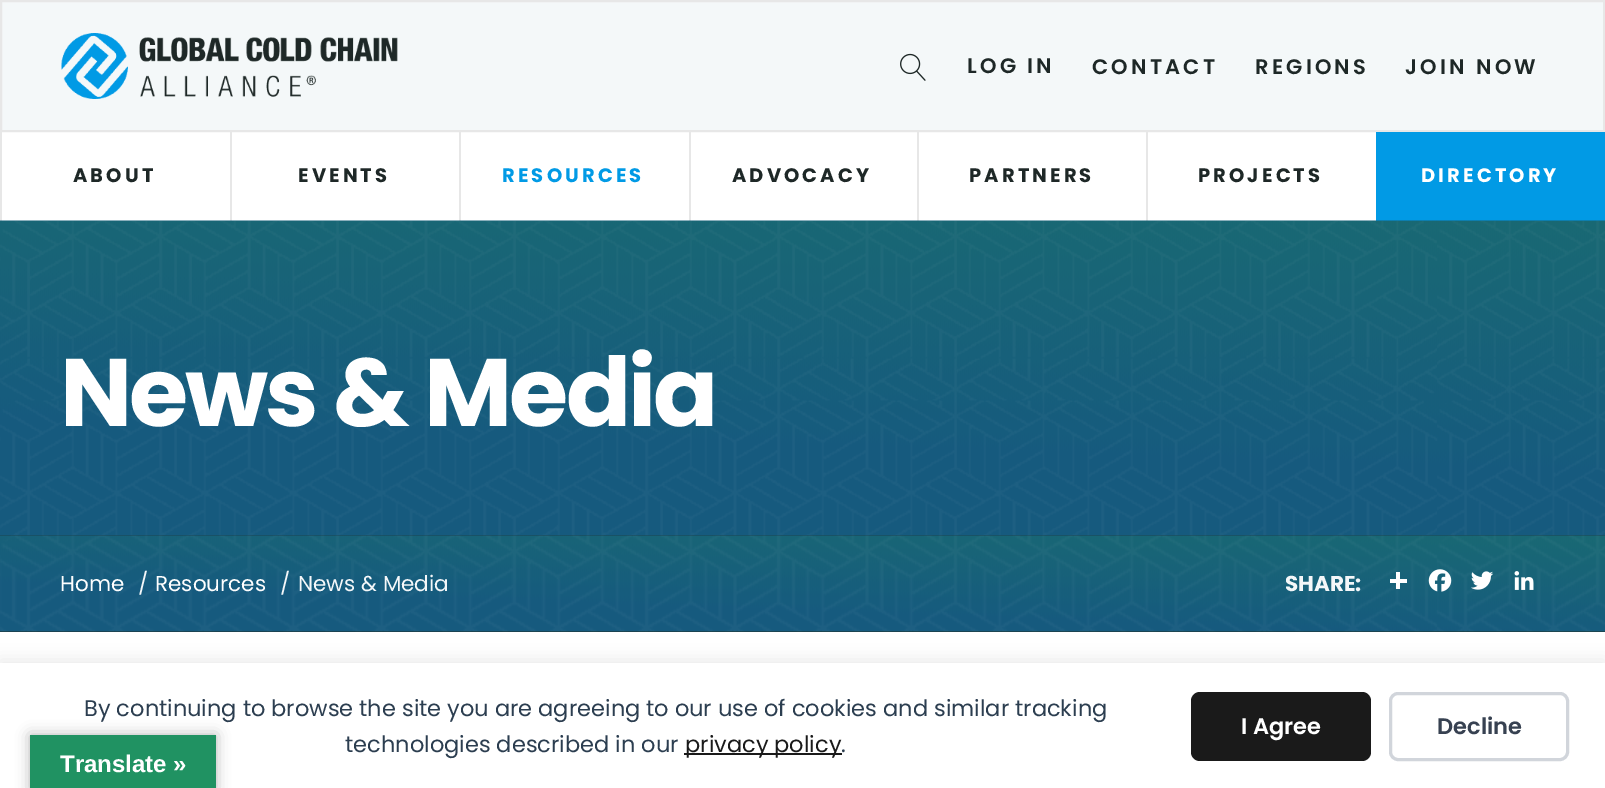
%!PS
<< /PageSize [1605 788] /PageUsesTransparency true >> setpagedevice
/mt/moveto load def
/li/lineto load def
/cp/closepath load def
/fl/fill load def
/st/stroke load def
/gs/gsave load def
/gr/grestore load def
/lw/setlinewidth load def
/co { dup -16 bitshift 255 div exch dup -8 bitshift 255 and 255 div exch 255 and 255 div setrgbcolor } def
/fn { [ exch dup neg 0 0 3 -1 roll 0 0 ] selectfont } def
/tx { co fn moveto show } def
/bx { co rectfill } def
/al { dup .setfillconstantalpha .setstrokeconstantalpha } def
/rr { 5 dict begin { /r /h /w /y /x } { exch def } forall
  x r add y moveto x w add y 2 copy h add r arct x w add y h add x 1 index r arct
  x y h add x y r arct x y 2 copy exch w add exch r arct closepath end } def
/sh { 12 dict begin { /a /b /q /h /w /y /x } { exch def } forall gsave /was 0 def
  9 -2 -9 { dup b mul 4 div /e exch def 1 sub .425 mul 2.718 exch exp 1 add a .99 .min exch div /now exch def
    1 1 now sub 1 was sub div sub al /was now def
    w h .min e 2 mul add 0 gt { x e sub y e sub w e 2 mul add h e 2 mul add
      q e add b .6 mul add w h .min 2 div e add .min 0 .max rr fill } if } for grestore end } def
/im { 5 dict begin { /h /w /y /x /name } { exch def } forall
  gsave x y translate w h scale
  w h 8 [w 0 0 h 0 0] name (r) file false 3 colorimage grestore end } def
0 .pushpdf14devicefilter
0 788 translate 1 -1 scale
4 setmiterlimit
0 0 1605 788 16#FFFFFF bx
16#F4F8F9 co
1 1 mt 1604 1 li 1604 131 li 1 131 li cp gs fl gr
16#E7E7E7 co
2 lw
st
(media/1.raw) 61 33 337 66 im
(media/2.raw) 900 53 26 28 im
0 132 2 89 16#E7E7E7 bx
230 132 2 89 16#E7E7E7 bx
459 132 2 89 16#E7E7E7 bx
689 132 2 89 16#E7E7E7 bx
917 132 2 89 16#E7E7E7 bx
1146 132 2 89 16#E7E7E7 bx
1376 132 229 89 16#019AE5 bx
(media/3.raw) 0 220 1605 316 im
0 631 1605 1 16#1E2827 bx
(media/4.raw) 0 535 1605 97 im
1396 572 4 17 16#FFFFFF bx
1390 579 17 4 16#FFFFFF bx
(media/5.raw) 1428 569 24 23 im
(media/6.raw) 1471 571 23 19 im
(media/7.raw) 1514 571 20 19 im
16#000000 co
0 660 1605 126 0 7.5 .08 sh
0 663 1605 125 16#FFFFFF bx
684 753 158 2 16#1A1A1A bx
1191 692 180 69 9 rr fl
16#D1D5DB co
3 lw
1390.5 693.5 177 66 7.5 rr st
16#000000 co
30 735 186 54 0 7 .3 sh
30 735 186 53 16#209262 bx
/Poppins-SemiBold 21 fn
16#1E2827 co
967 73 mt 3.25 0 (LOG IN) ashow
1092 74 mt 3.25 0 (CONTACT) ashow
1255 74 mt 3.25 0 (REGIONS) ashow
1405 74 mt 3.25 0 (JOIN NOW) ashow
/Poppins-Bold 19.5 fn
73 182 mt 3.1 0 (ABOUT) ashow
298 182 mt 3.1 0 (EVENTS) ashow
16#019AE5 co
502 182 mt 3.1 0 (RESOURCES) ashow
16#1E2827 co
732 182 mt 3.1 0 (ADVOCACY) ashow
969 182 mt 3.1 0 (PARTNERS) ashow
1198 182 mt 3.1 0 (PROJECTS) ashow
16#FFFFFF co
1421 182 mt 3.1 0 (DIRECTORY) ashow
/Poppins-Bold 96 fn
60 426 mt -3 0 (News & Media) ashow
(Home) 60 591 /Poppins-Regular 21.5 16#FFFFFF tx
(/) 138 591 /Poppins-Regular 21.5 16#F4F7F9 tx
(Resources) 155 591 /Poppins-Regular 21.5 16#FFFFFF tx
(/) 280 591 /Poppins-Regular 21.5 16#F4F7F9 tx
(News & Media) 298 591 /Poppins-Regular 21.5 16#F4F7F9 tx
(SHARE:) 1285 591 /Poppins-Bold 21.5 16#F4F7F9 tx
(By continuing to browse the site you are agreeing to our use of cookies and similar tracking) 84 716 /Poppins-Regular 22.5 16#2C3E50 tx
(technologies described in our) 345 752 /Poppins-Regular 22.5 16#2C3E50 tx
(privacy policy) 685 752 /Poppins-Regular 22.5 16#1A1A1A tx
(.) 841 752 /Poppins-Regular 22.5 16#2C3E50 tx
(I Agree) 1241 734 /Poppins-SemiBold 22.5 16#FFFFFF tx
(Decline) 1437 734 /Poppins-SemiBold 22.5 16#374151 tx
(Translate ») 60 772 /LiberationSans-Bold 24 16#FFFFFF tx
.poppdf14devicefilter showpage
